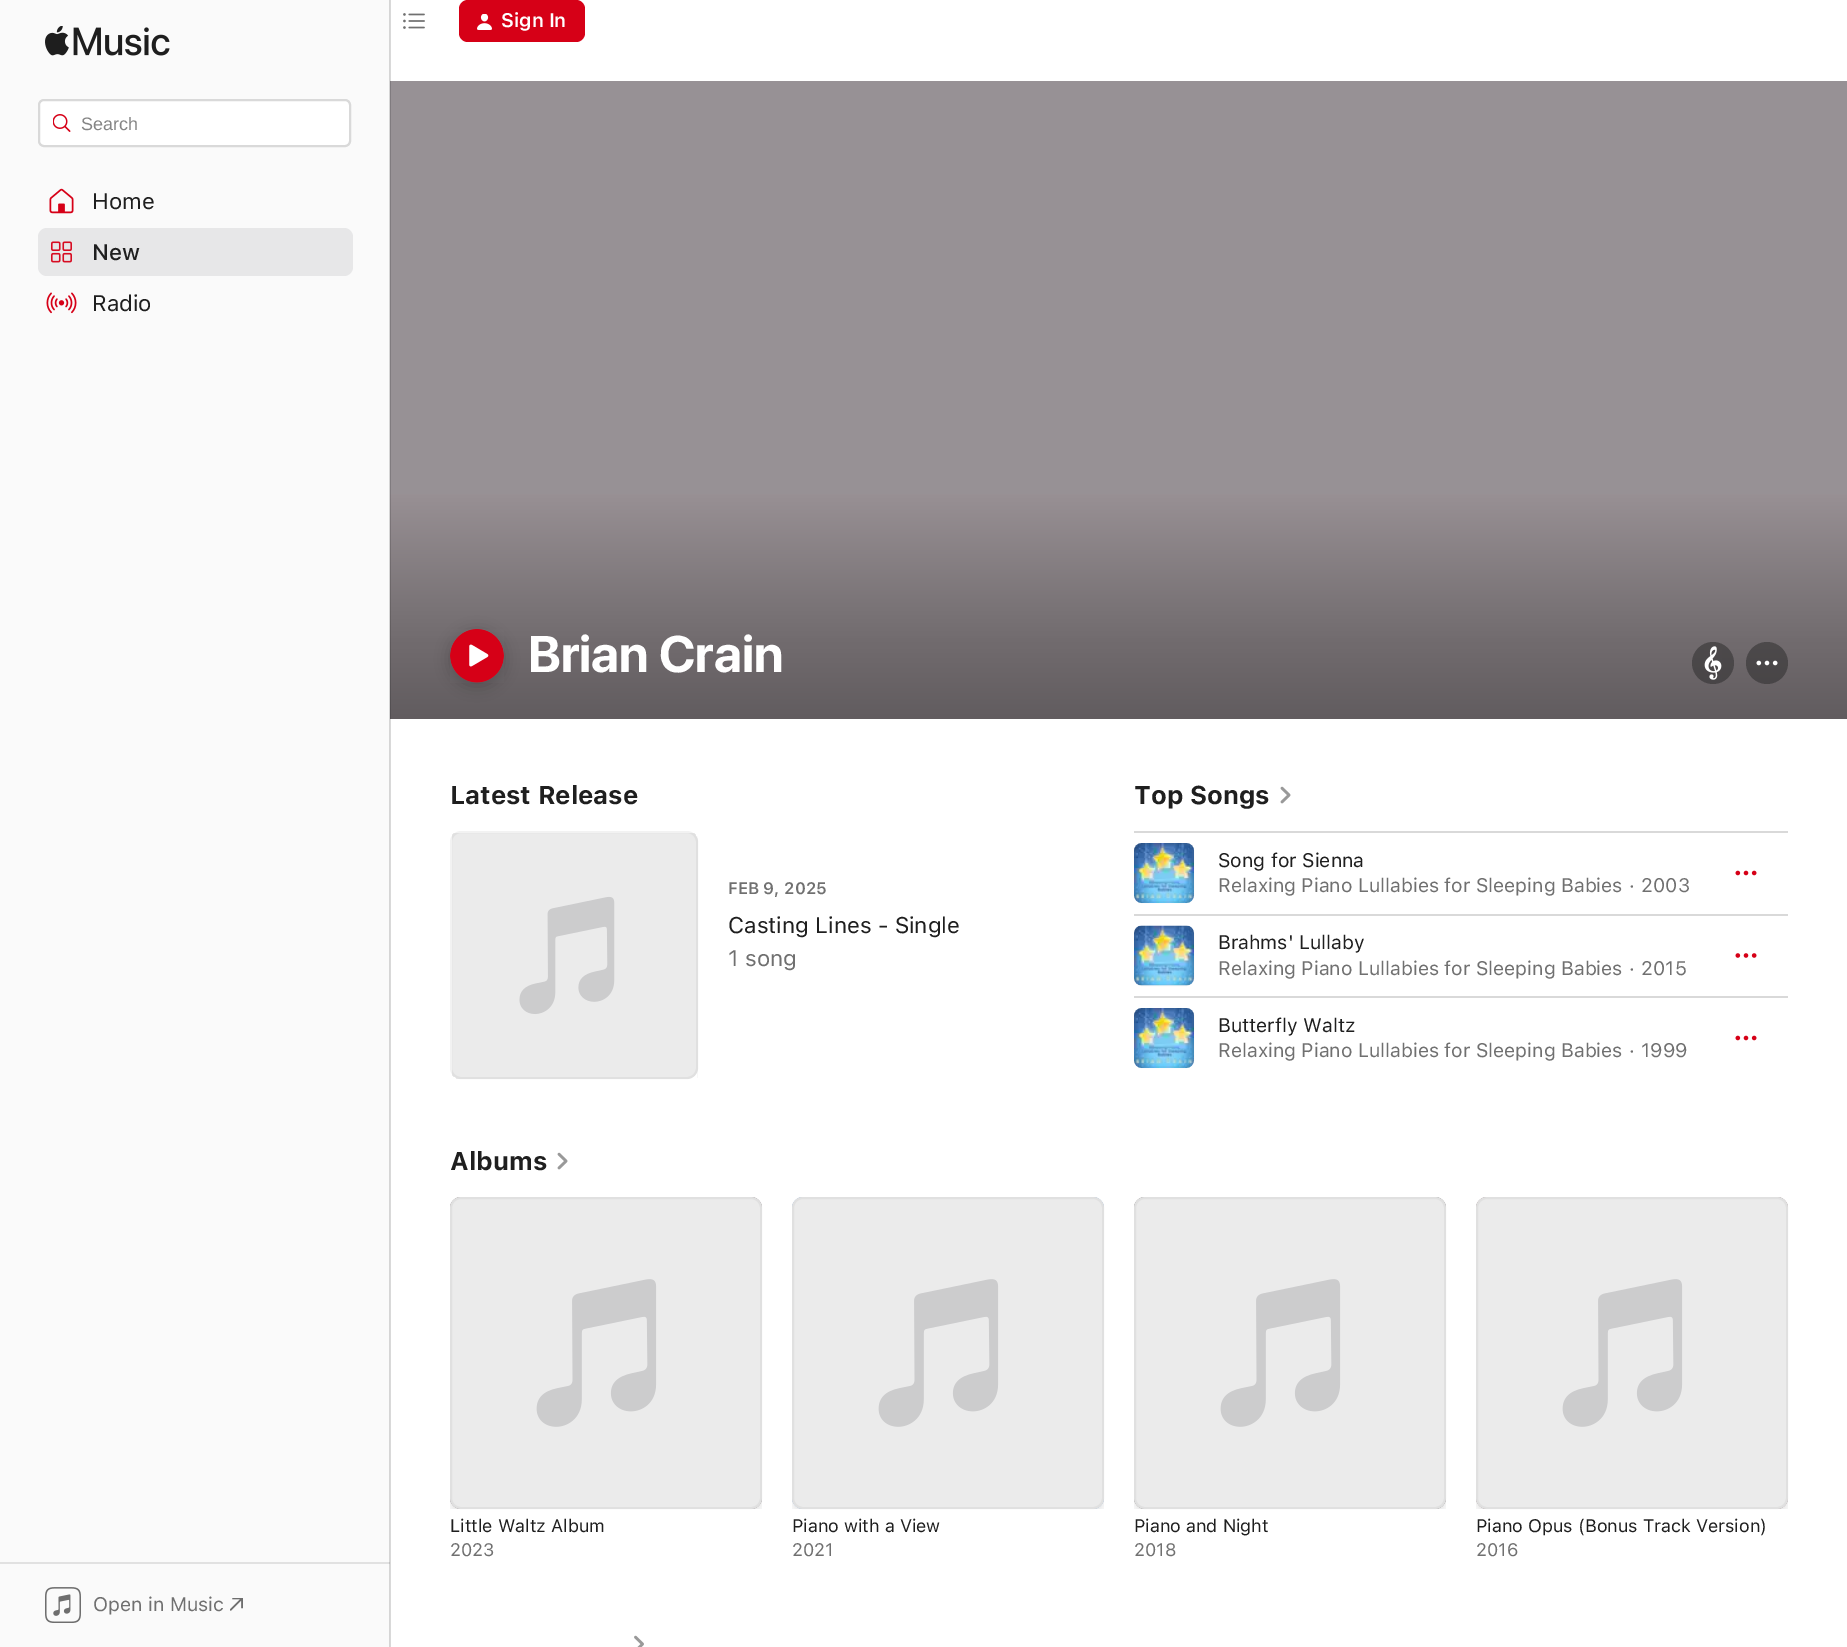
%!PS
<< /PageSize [1847 1647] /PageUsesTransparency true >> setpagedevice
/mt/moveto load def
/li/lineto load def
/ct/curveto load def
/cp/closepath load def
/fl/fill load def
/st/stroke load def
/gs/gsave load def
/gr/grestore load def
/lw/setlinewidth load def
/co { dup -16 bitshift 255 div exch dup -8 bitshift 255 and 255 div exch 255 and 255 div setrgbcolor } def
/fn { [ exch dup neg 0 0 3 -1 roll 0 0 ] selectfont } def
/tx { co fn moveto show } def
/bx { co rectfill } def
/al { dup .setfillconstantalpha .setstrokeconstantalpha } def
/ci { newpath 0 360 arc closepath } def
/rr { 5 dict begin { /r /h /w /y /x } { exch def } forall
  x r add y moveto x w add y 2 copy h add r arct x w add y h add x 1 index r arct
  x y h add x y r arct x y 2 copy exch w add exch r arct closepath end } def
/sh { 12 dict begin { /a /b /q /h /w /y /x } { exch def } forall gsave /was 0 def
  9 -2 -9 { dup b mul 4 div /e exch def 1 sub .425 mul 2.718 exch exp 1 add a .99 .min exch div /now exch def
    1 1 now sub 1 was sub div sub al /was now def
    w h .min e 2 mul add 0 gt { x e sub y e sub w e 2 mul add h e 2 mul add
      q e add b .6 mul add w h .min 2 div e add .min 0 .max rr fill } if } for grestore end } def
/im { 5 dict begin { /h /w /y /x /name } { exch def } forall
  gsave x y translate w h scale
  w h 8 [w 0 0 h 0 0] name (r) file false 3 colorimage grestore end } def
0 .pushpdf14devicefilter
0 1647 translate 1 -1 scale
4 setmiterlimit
0 0 1847 1647 16#FFFFFF bx
390 0 1 1647 16#D9D9D9 bx
(media/1.raw) 403 13 22 16 im
16#D60017 co
459 0 126 42 9 rr fl
(media/2.raw) 477 14 15 16 im
0 0 389 1647 16#FAFAFA bx
0 1562 390 2 16#E1E1E1 bx
389 0 1 1647 16#D5D5D5 bx
389 1562 1 2 16#C0C0C0 bx
(media/3.raw) 45 26 125 30 im
16#FFFFFF co
39 100 311 46 5 rr gs fl gr
16#D9D9D9 co
2 lw
st
(media/4.raw) 53 114 18 18 im
(media/5.raw) 49 188 25 26 im
16#E7E7E8 co
38 228 315 48 9 rr fl
(media/6.raw) 51 241 21 22 im
(media/7.raw) 46 292 31 22 im
(media/8.raw) 45 1587 36 36 im
(media/9.raw) 230 1598 13 13 im
391 81 1456 413 16#979195 bx
390 81 1 413 16#807B7F bx
gs 391 494 mt 1847 494 li 1847 719 li 391 719 li cp clip newpath
<< /ShadingType 2 /ColorSpace /DeviceRGB /Coords [1119 719 1119 494] /Extend [true true] /Function << /FunctionType 3 /Domain [0 1] /Functions [<< /FunctionType 2 /Domain [0 1] /C0 [.38 .361 .373] /C1 [.447 .424 .435] /N 1 >> << /FunctionType 2 /Domain [0 1] /C0 [.447 .424 .435] /C1 [.596 .565 .58] /N 1 >>] /Bounds [.36] /Encode [0 1 0 1] >> >> shfill gr
gs 390 494 mt 391 494 li 391 719 li 390 719 li cp clip newpath
<< /ShadingType 2 /ColorSpace /DeviceRGB /Coords [1119 719 1119 494] /Extend [true true] /Function << /FunctionType 3 /Domain [0 1] /Functions [<< /FunctionType 2 /Domain [0 1] /C0 [.322 .306 .318] /C1 [.38 .361 .369] /N 1 >> << /FunctionType 2 /Domain [0 1] /C0 [.38 .361 .369] /C1 [.506 .478 .494] /N 1 >>] /Bounds [.36] /Encode [0 1 0 1] >> >> shfill gr
16#000000 co
450 632 54 54 27 7.5 .2 sh
(media/10.raw) 450 629 54 54 im
0.5 al
16#282828 co
1713 663 21 ci fl
1 al
(media/11.raw) 1704 646 18 34 im
0.5 al
1767 663 21 ci fl
1 al
(media/12.raw) 1756 660 22 6 im
gs
450 831 248 248 11 rr clip newpath
16#EBEBEB co
452 833 mt 698 833 li 698 1068 li 698 1074 693 1079 687 1079 ct 452 1079 li cp fl
gr
(media/13.raw) 455 836 243 242 im
0.1 al
16#808080 co
451 832 246 246 10 rr st
1 al
(media/14.raw) 1280 786 11 18 im
1134 831 654 2 16#D9D9D9 bx
(media/15.raw) 1134 843 60 60 im
0.1 al
16#808080 co
1135 844 58 58 7 rr st
1 al
(media/16.raw) 1735 870 22 6 im
1134 914 654 2 16#D9D9D9 bx
(media/17.raw) 1134 925 60 61 im
0.1 al
16#808080 co
1135 927 58 58 7 rr st
1 al
(media/18.raw) 1735 953 22 5 im
1134 996 654 2 16#D9D9D9 bx
(media/15.raw) 1134 1008 60 60 im
0.1 al
16#808080 co
1135 1009 58 58 7 rr st
1 al
(media/16.raw) 1735 1035 22 6 im
(media/14.raw) 557 1152 11 18 im
(media/19.raw) 450 1197 312 312 im
0.1 al
451 1198 310 310 10 rr st
1 al
(media/20.raw) 792 1197 312 312 im
0.1 al
793 1198 310 310 10 rr st
1 al
(media/21.raw) 1134 1197 312 312 im
0.1 al
1135 1198 310 310 10 rr st
1 al
(media/22.raw) 1476 1197 312 312 im
0.1 al
1477 1198 310 310 10 rr st
1 al
(media/23.raw) 634 1635 10 12 im
(Sign In) 501 27 /SF-SemiBold 19.5 16#FFFFFF tx
(Search) 81 130 /LiberationSans-Regular 18 16#858585 tx
(Home) 92 209 /SF-Regular 22.5 16#1F1F1F tx
(New) 92 260 /SF-Medium 22.5 16#1F1F1F tx
(Radio) 92 311 /SF-Regular 22.5 16#1F1F1F tx
(Open in Music) 93 1611 /SF-Regular 19.5 16#707070 tx
(Brian Crain) 528 672 /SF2-Bold 51 16#FFFFFF tx
(Latest Release) 450 804 /SF-Bold 25.5 16#1F1F1F tx
(FEB 9, 2025) 728 894 /SF-SemiBold 16.5 16#707070 tx
(Casting Lines - Single) 728 933 /SF-Regular 22.5 16#1F1F1F tx
(1 song) 728 966 /SF-Regular 22.5 16#707070 tx
(Top Songs) 1134 804 /SF-Bold 25.5 16#1F1F1F tx
(Song for Sienna) 1218 867 /SF-Regular 19.5 16#1F1F1F tx
(Relaxing Piano Lullabies for Sleeping Babies · 2003) 1218 892 /SF-Regular 19.5 16#707070 tx
(Brahms' Lullaby) 1218 949 /SF-Regular 19.5 16#1F1F1F tx
(Relaxing Piano Lullabies for Sleeping Babies · 2015) 1218 975 /SF-Regular 19.5 16#707070 tx
(Butterfly Waltz) 1218 1032 /SF-Regular 19.5 16#1F1F1F tx
(Relaxing Piano Lullabies for Sleeping Babies · 1999) 1218 1057 /SF-Regular 19.5 16#707070 tx
(Albums) 450 1170 /SF-Bold 25.5 16#1F1F1F tx
(Little Waltz Album) 450 1532 /SF-Regular 18 16#1F1F1F tx
(2023) 450 1556 /SF-Regular 18 16#707070 tx
(Piano with a View) 792 1532 /SF-Regular 18 16#1F1F1F tx
(2021) 792 1556 /SF-Regular 18 16#707070 tx
(Piano and Night) 1134 1532 /SF-Regular 18 16#1F1F1F tx
(2018) 1134 1556 /SF-Regular 18 16#707070 tx
(Piano Opus \(Bonus Track Version\)) 1476 1532 /SF-Regular 18 16#1F1F1F tx
(2016) 1476 1556 /SF-Regular 18 16#707070 tx
.poppdf14devicefilter showpage
